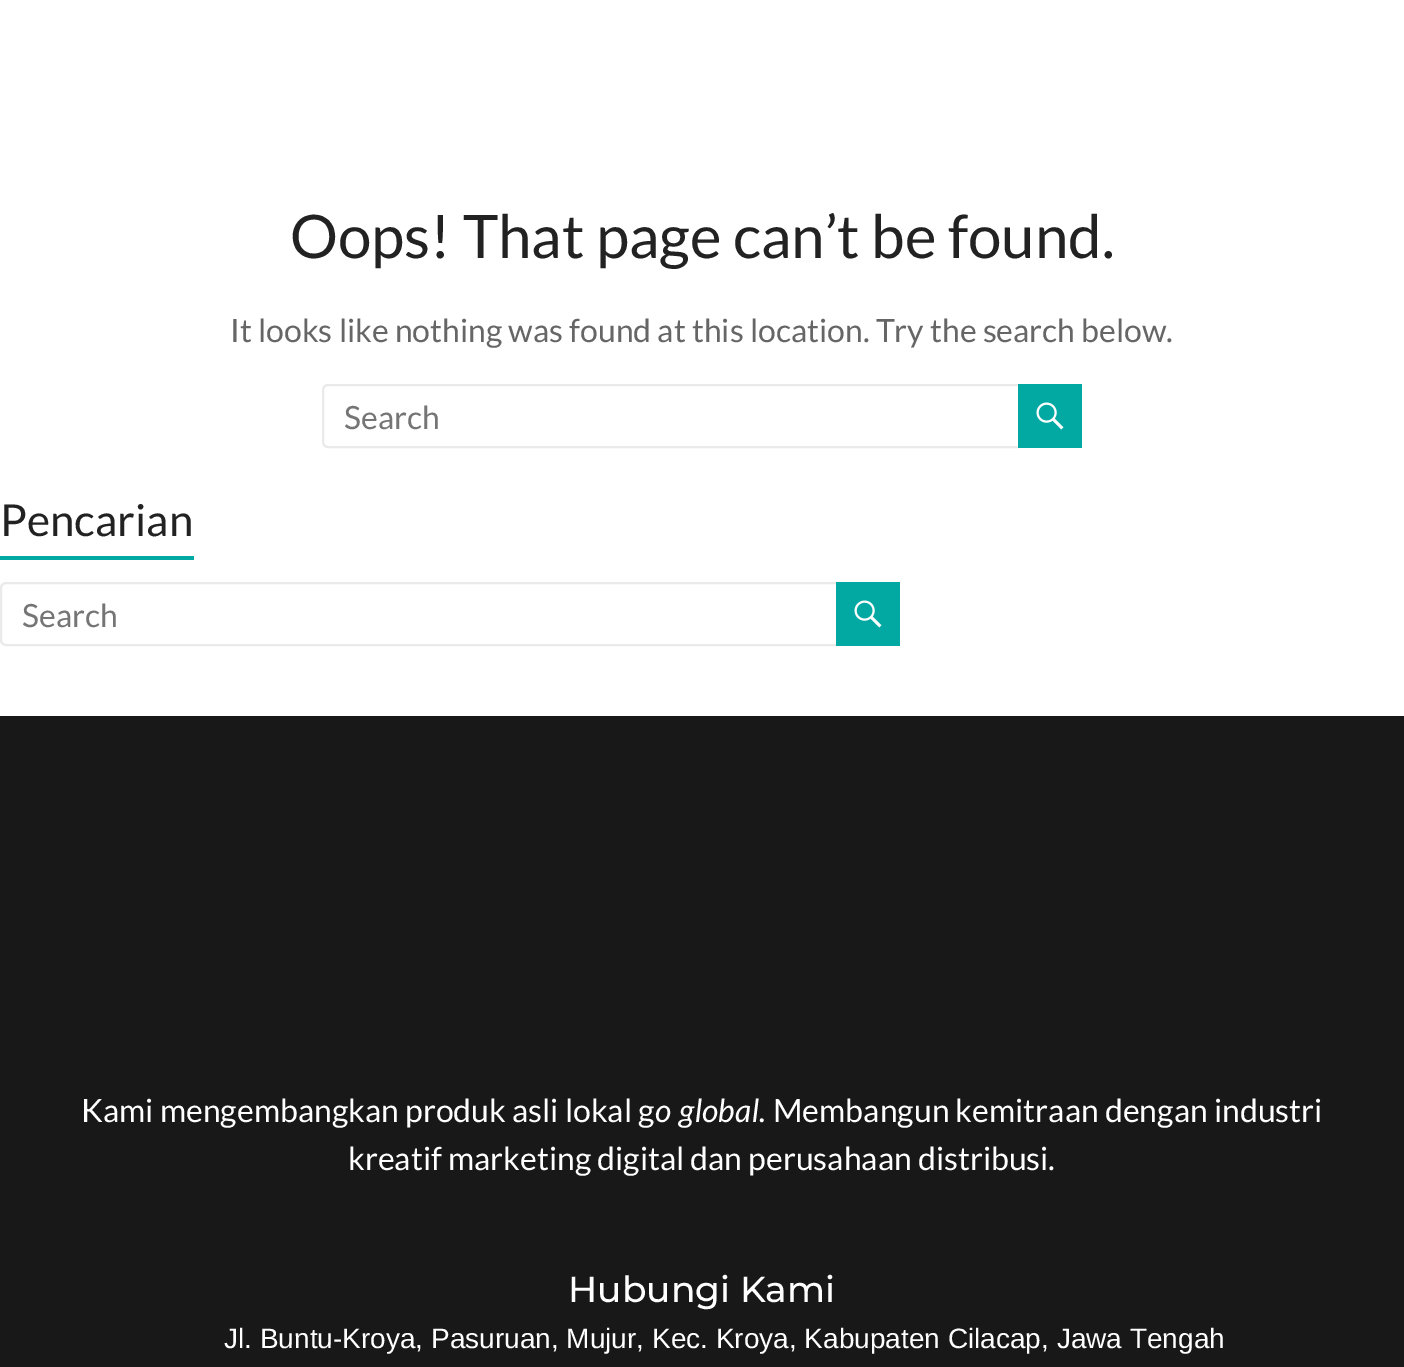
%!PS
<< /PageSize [1404 1367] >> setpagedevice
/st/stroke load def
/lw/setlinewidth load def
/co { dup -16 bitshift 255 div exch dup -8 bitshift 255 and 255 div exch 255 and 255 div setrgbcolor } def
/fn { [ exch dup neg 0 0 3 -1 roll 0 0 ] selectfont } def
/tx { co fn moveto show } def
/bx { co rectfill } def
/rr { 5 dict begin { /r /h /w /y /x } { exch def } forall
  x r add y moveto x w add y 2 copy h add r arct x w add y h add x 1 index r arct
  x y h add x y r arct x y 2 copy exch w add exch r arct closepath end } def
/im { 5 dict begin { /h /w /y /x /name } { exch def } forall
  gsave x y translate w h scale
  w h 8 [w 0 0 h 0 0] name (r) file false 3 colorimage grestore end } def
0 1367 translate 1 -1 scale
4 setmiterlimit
0 0 1404 1367 16#FFFFFF bx
16#EAEAEA co
2 lw
323 385 700 62 5 rr st
1018 384 64 64 16#01A9A2 bx
(media/1.raw) 1036 402 28 28 im
0 556 194 4 16#01A9A2 bx
16#EAEAEA co
1 583 840 62 5 rr st
836 582 64 64 16#01A9A2 bx
(media/1.raw) 854 600 28 28 im
0 716 1404 651 16#181818 bx
(Oops! That page can’t be found.) 290 258 /Lato-Regular 60 16#222222 tx
(It looks like nothing was found at this location. Try the search below.) 230 342 /Lato-Regular 32 16#666666 tx
(Search) 344 429 /Lato-Regular 32 16#757575 tx
(Pencarian) 0 536 /Lato-Regular 44 16#222222 tx
(Search) 22 627 /Lato-Regular 32 16#757575 tx
(Kami mengembangkan produk asli lokal g) 81 1122 /Lato-Regular 32 16#FFFFFF tx
(o global.) 655 1122 /Lato-Italic 32 16#FFFFFF tx
(Membangun kemitraan dengan industri) 773 1122 /Lato-Regular 32 16#FFFFFF tx
(kreatif marketing digital dan perusahaan distribusi.) 348 1170 /Lato-Regular 32 16#FFFFFF tx
(Hubungi Kami) 568 1302 /Montserrat-Medium 36 16#FFFFFF tx
(Jl. Buntu-Kroya, Pasuruan, Mujur, Kec. Kroya, Kabupaten Cilacap, Jawa Tengah) 224 1348 /LiberationSans-Regular 28 16#FFFFFF tx
showpage
